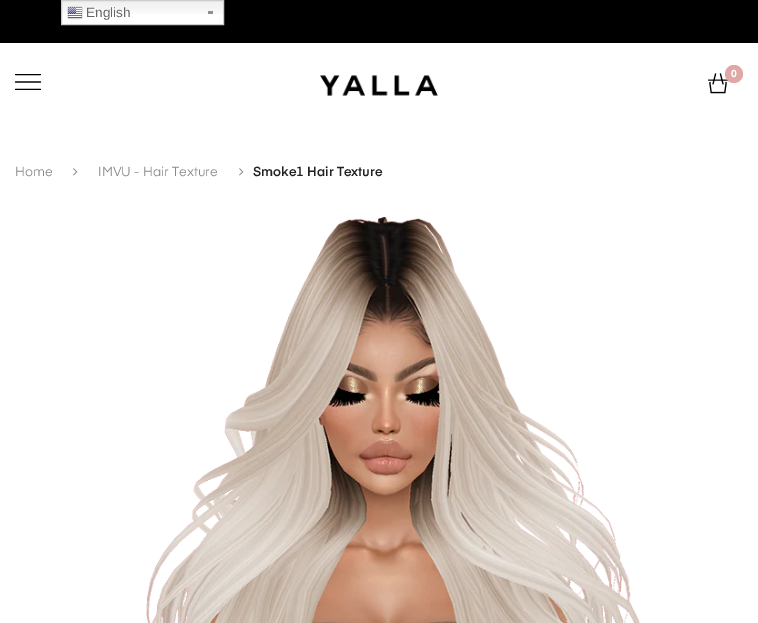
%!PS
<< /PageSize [758 623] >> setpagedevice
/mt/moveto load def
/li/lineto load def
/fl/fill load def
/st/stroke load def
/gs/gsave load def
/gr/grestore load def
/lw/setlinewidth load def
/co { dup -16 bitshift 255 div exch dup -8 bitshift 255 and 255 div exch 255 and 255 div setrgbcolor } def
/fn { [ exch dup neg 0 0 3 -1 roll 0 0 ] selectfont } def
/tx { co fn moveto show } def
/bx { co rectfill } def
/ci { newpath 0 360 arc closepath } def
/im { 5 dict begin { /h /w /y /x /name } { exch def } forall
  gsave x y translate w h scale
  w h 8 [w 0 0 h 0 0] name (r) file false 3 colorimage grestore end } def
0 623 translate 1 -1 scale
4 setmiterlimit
0 0 758 623 16#FFFFFF bx
0 0 758 43 16#000000 bx
62 14 161 10 16#FFFFFF bx
(media/1.raw) 62 1 161 13 im
208 11 5 3 16#8F8F8F bx
16#CCCCCC co
61.5 .5 162 24 rectstroke
(media/2.raw) 67 6 16 14 im
gs
15 74 26 16 rectclip
16#000000 co
1.2 lw
1 setlinecap
15.5 74.5 mt 40.5 74.5 li st
gr
16#000000 co
1.2 lw
1 setlinecap
15.5 82 mt 40.5 82 li st
gs
15 74 26 16 rectclip
15.5 89.5 mt 40.5 89.5 li st
gr
(media/3.raw) 320 75 118 21 im
(media/4.raw) 708 73 20 21 im
16#E1A6A6 co
734 74 9 ci fl
(media/5.raw) 73 168 5 8 im
(media/5.raw) 239 168 5 8 im
(media/6.raw) 146 217 494 406 im
(English) 86 17 /LiberationSans-Regular 13.5 16#666666 tx
(0) 731 77 /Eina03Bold-Bold 10 16#FFFFFF tx
(Home) 15 176 /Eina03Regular-Regular 13 16#888888 tx
(IMVU - Hair Texture) 98 176 /Eina03Regular-Regular 13 16#888888 tx
(Smoke1 Hair Texture) 253 176 /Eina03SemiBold-SemiBold 13 16#222222 tx
showpage
